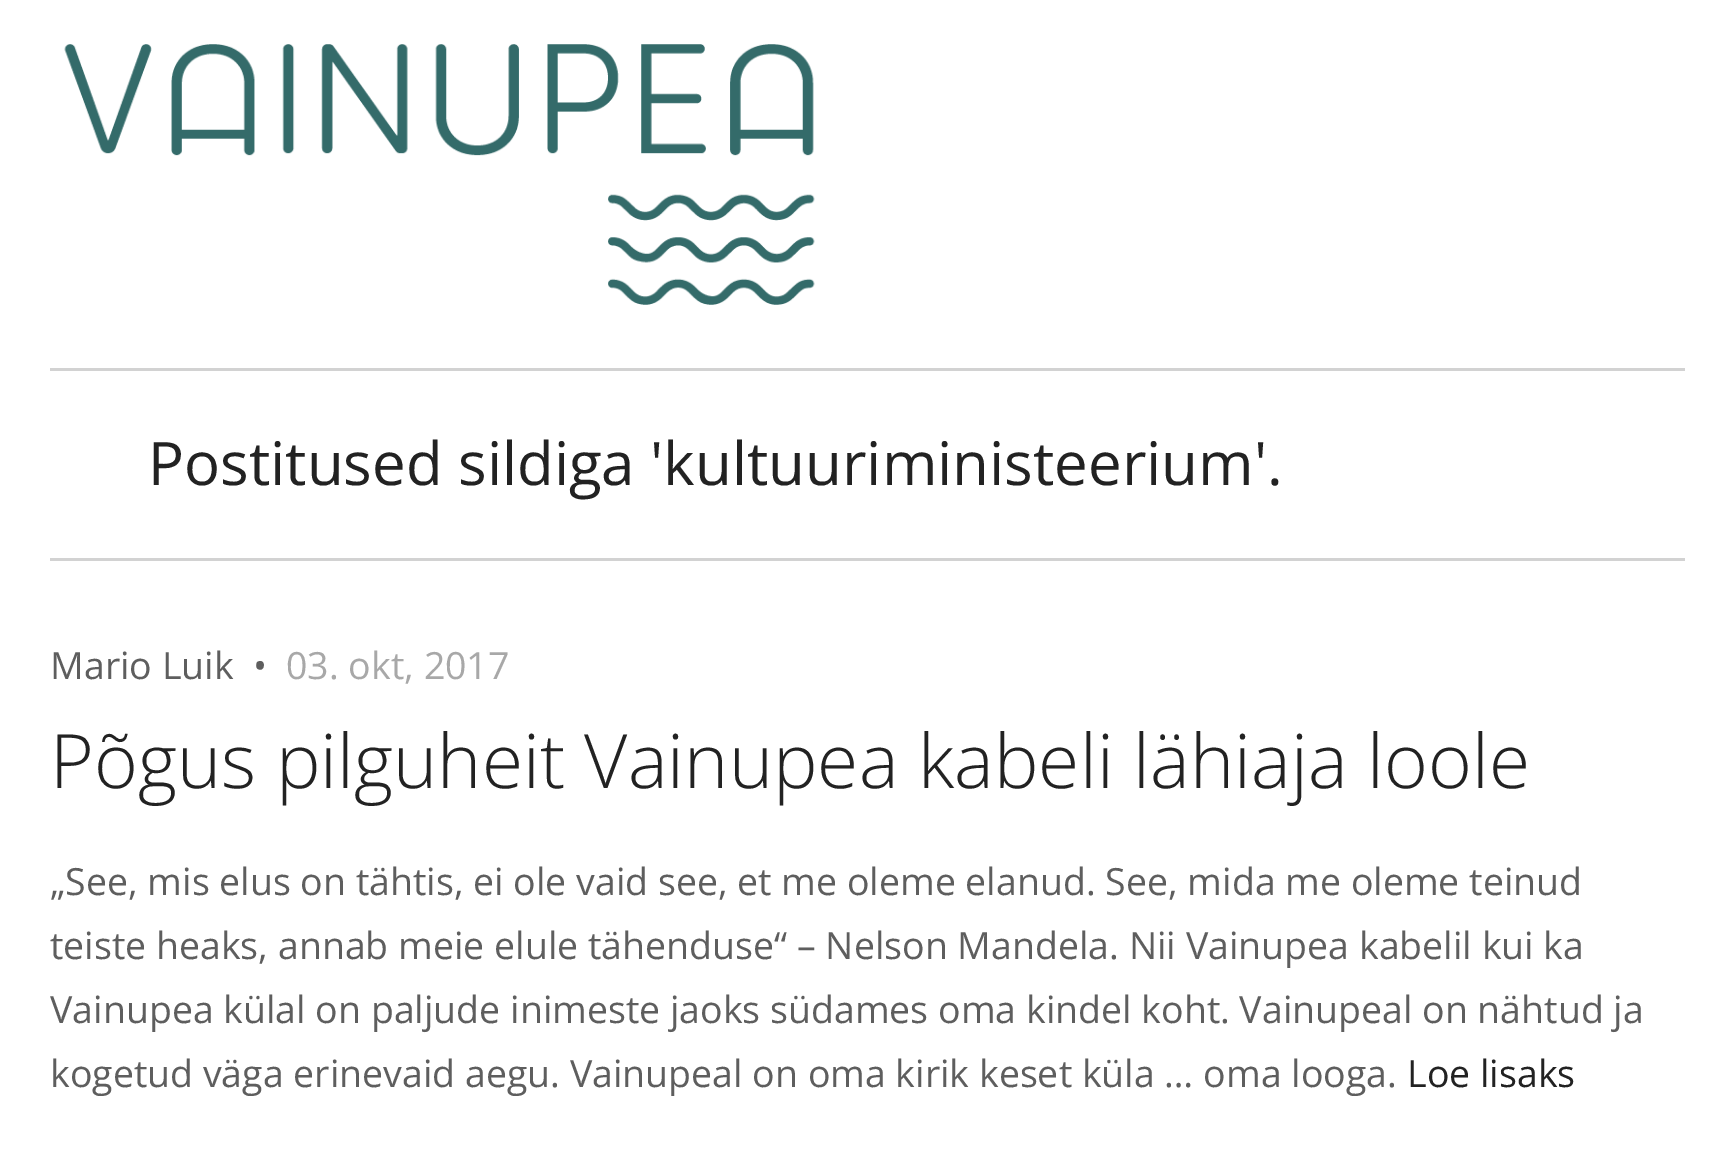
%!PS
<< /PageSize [1735 1174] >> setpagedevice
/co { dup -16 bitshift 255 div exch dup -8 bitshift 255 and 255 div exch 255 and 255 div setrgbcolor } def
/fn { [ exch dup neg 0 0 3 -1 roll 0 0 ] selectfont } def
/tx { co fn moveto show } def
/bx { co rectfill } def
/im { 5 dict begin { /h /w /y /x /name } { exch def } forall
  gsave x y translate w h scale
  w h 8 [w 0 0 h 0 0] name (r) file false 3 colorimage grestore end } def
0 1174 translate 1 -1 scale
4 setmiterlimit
0 0 1735 1174 16#FFFFFF bx
50 368 1635 3 16#D2D2D2 bx
(media/1.raw) 64 44 751 261 im
50 558 1635 3 16#D2D2D2 bx
(Postitused sildiga 'kultuuriministeerium'.) 148 485 /OpenSans-Regular 60 16#222222 tx
(Mario Luik  •) 50 679 /OpenSans-Regular 37.5 16#5E5E5E tx
(03. okt, 2017) 286 679 /OpenSans-Regular 37.5 16#A8A8A8 tx
(Põgus pilguheit Vainupea kabeli lähiaja loole) 50 788 /OpenSans-Light 75 16#222222 tx
(„See, mis elus on tähtis, ei ole vaid see, et me oleme elanud. See, mida me oleme teinud) 50 895 /OpenSans-Regular 37.5 16#5E5E5E tx
(teiste heaks, annab meie elule tähenduse“ – Nelson Mandela. Nii Vainupea kabelil kui ka) 50 959 /OpenSans-Regular 37.5 16#5E5E5E tx
(Vainupea külal on paljude inimeste jaoks südames oma kindel koht. Vainupeal on nähtud ja) 50 1023 /OpenSans-Regular 37.5 16#5E5E5E tx
(kogetud väga erinevaid aegu. Vainupeal on oma kirik keset küla … oma looga.) 50 1087 /OpenSans-Regular 37.5 16#5E5E5E tx
(Loe lisaks) 1407 1087 /OpenSans-Regular 37.5 16#222222 tx
showpage
